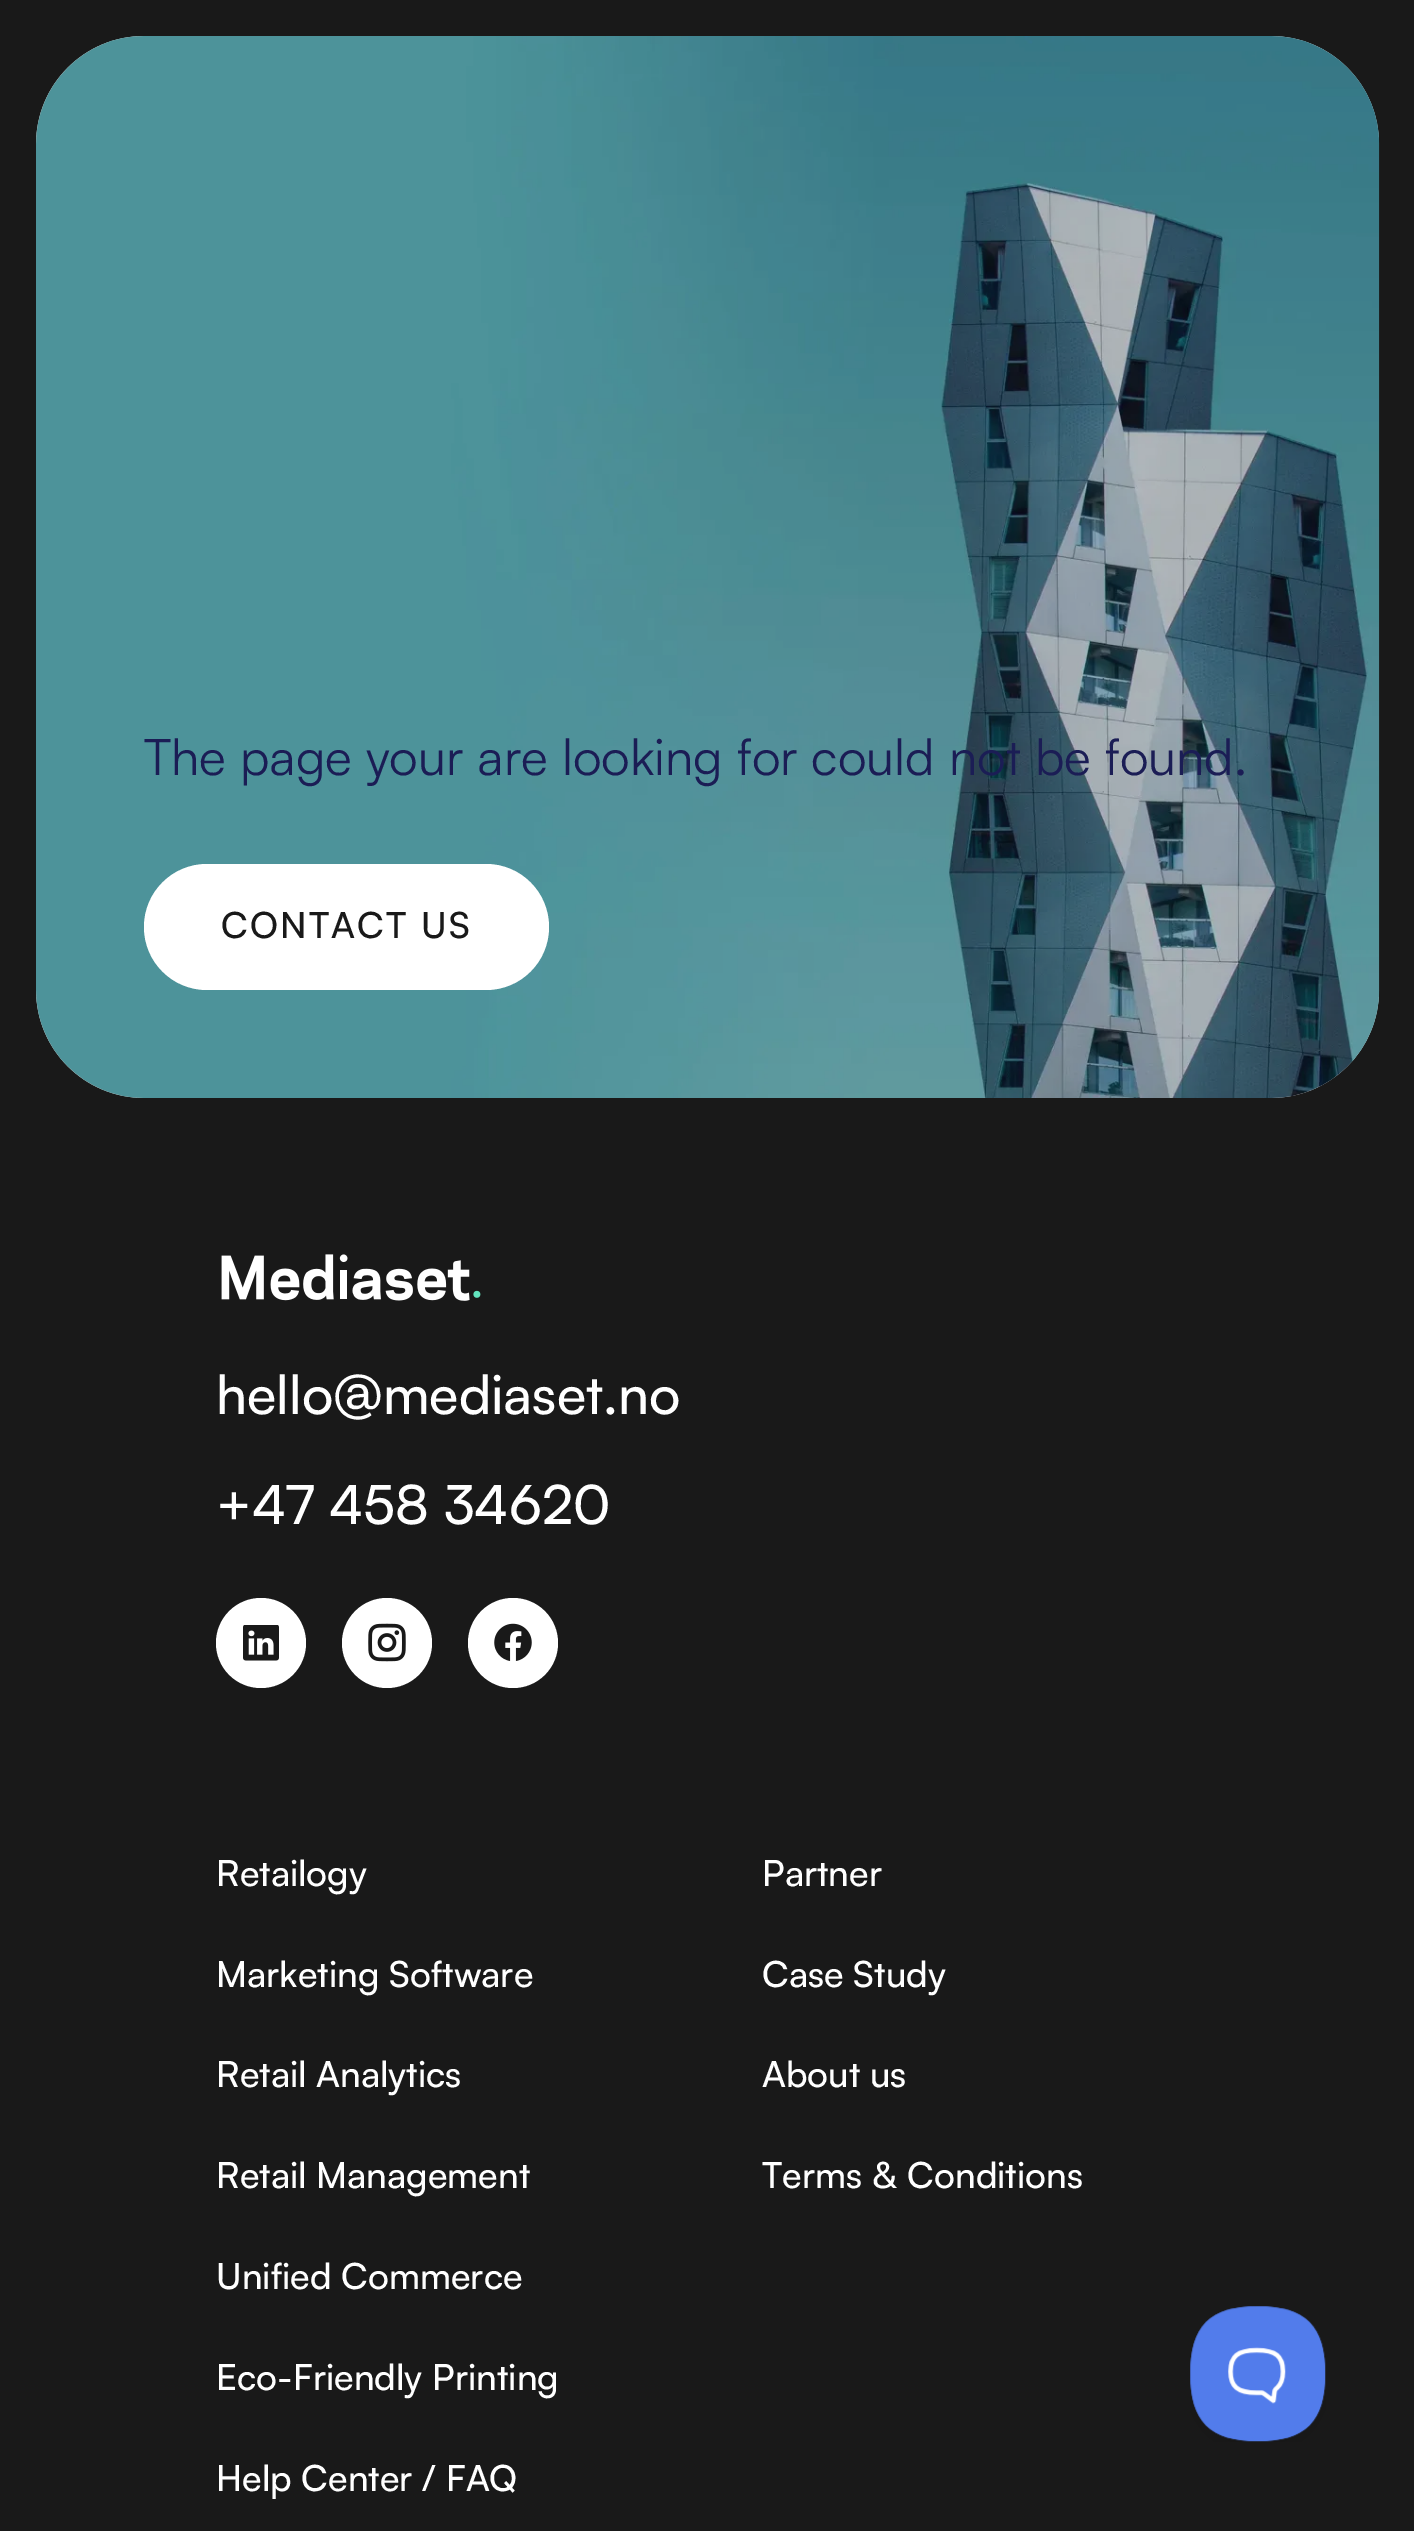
%!PS
<< /PageSize [1414 2531] /PageUsesTransparency true >> setpagedevice
/mt/moveto load def
/fl/fill load def
/co { dup -16 bitshift 255 div exch dup -8 bitshift 255 and 255 div exch 255 and 255 div setrgbcolor } def
/fn { [ exch dup neg 0 0 3 -1 roll 0 0 ] selectfont } def
/tx { co fn moveto show } def
/bx { co rectfill } def
/al { dup .setfillconstantalpha .setstrokeconstantalpha } def
/ci { newpath 0 360 arc closepath } def
/rr { 5 dict begin { /r /h /w /y /x } { exch def } forall
  x r add y moveto x w add y 2 copy h add r arct x w add y h add x 1 index r arct
  x y h add x y r arct x y 2 copy exch w add exch r arct closepath end } def
/im { 5 dict begin { /h /w /y /x /name } { exch def } forall
  gsave x y translate w h scale
  w h 8 [w 0 0 h 0 0] name (r) file false 3 colorimage grestore end } def
0 .pushpdf14devicefilter
0 2531 translate 1 -1 scale
4 setmiterlimit
0 0 1414 2531 16#191919 bx
16#FFFFFF co
36 36 1343 1062 108 rr fl
(media/1.raw) 36 36 1344 1062 im
0.25 al
16#191919 co
36 36 1343 1062 108 rr fl
1 al
16#FFFFFF co
144 864 405 126 63 rr fl
(media/2.raw) 221 1254 260 47 im
261 1643 45 ci fl
(media/3.raw) 243 1625 36 36 im
387 1643 45 ci fl
(media/4.raw) 368 1623 38 39 im
513 1643 45 ci fl
(media/5.raw) 494 1623 38 38 im
(media/6.raw) 1190 2306 136 136 im
(The page your are looking for could not be found.) 144 775 /Satoshi-Regular 50.4 16#1B1D55 tx
/Satoshi-Medium 36 fn
16#191919 co
221 938 mt 2.25 0 (CONTACT US) ashow
(hello@mediaset.no) 216 1414 /Satoshi-Medium 54 16#FFFFFF tx
(+47 458 34620) 216 1524 /Satoshi-Medium 54 16#FFFFFF tx
(Retailogy) 216 1886 /Satoshi-Medium 36 16#FFFFFF tx
(Marketing Software) 216 1987 /Satoshi-Medium 36 16#FFFFFF tx
(Retail Analytics) 216 2087 /Satoshi-Medium 36 16#FFFFFF tx
(Retail Management) 216 2188 /Satoshi-Medium 36 16#FFFFFF tx
(Unified Commerce) 216 2289 /Satoshi-Medium 36 16#FFFFFF tx
(Eco-Friendly Printing) 216 2390 /Satoshi-Medium 36 16#FFFFFF tx
(Help Center / FAQ) 216 2491 /Satoshi-Medium 36 16#FFFFFF tx
(Partner) 762 1886 /Satoshi-Medium 36 16#FFFFFF tx
(Case Study) 762 1987 /Satoshi-Medium 36 16#FFFFFF tx
(About us) 762 2087 /Satoshi-Medium 36 16#FFFFFF tx
(Terms & Conditions) 762 2188 /Satoshi-Medium 36 16#FFFFFF tx
.poppdf14devicefilter showpage
